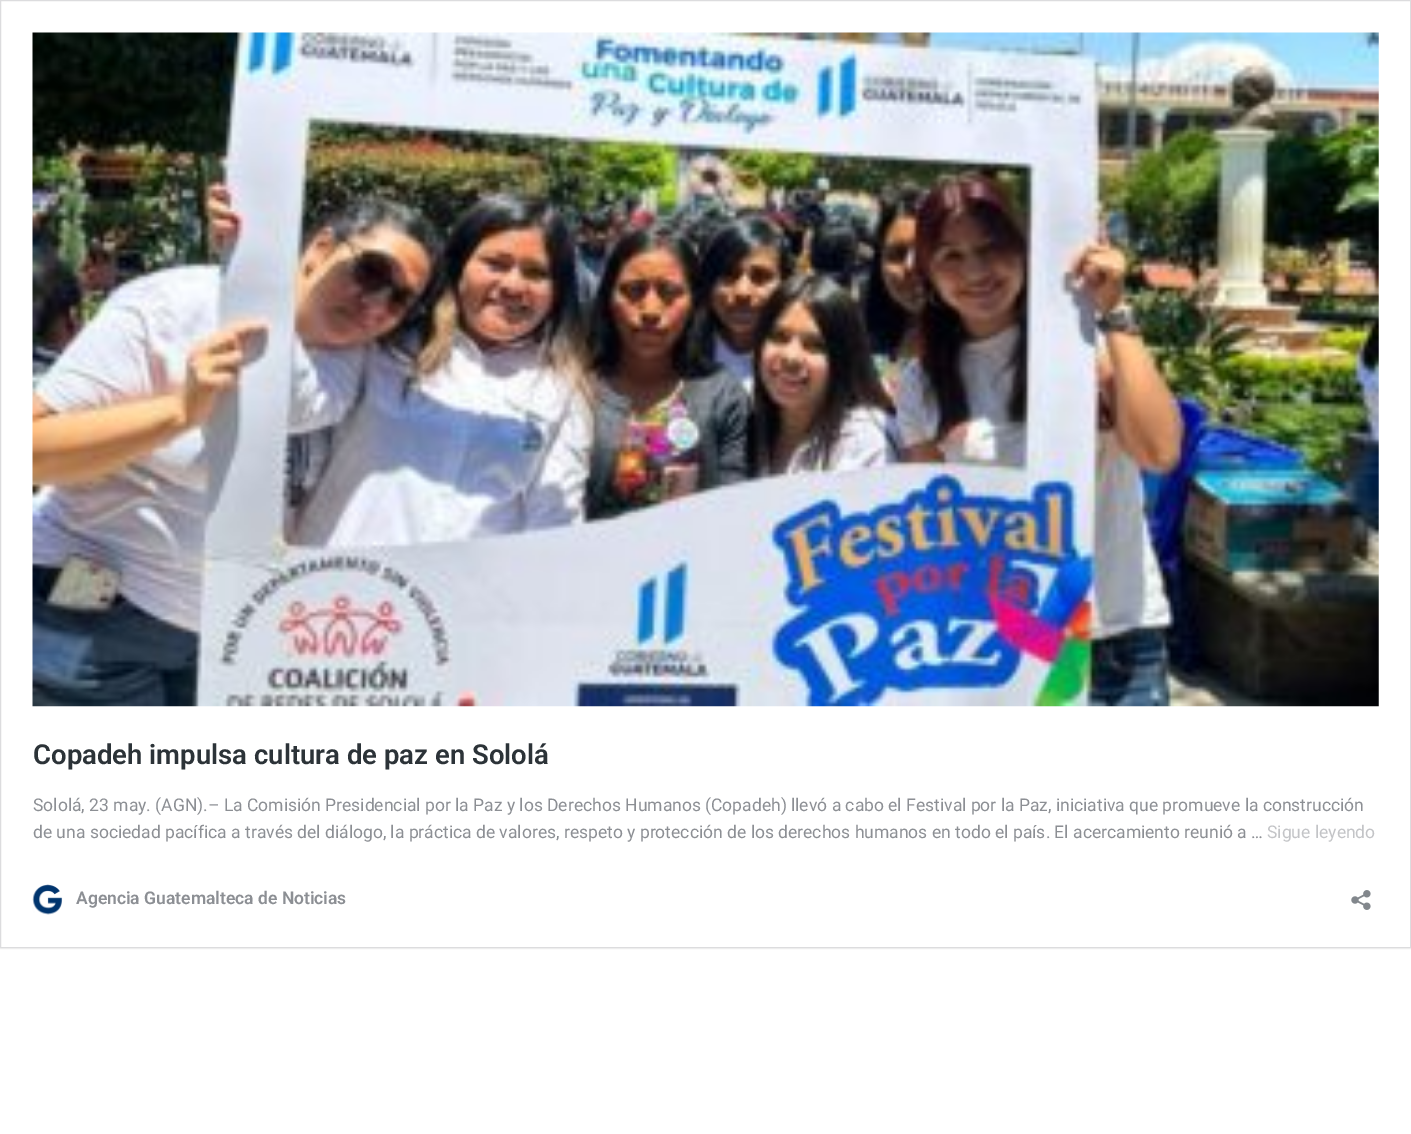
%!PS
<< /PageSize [1411 1134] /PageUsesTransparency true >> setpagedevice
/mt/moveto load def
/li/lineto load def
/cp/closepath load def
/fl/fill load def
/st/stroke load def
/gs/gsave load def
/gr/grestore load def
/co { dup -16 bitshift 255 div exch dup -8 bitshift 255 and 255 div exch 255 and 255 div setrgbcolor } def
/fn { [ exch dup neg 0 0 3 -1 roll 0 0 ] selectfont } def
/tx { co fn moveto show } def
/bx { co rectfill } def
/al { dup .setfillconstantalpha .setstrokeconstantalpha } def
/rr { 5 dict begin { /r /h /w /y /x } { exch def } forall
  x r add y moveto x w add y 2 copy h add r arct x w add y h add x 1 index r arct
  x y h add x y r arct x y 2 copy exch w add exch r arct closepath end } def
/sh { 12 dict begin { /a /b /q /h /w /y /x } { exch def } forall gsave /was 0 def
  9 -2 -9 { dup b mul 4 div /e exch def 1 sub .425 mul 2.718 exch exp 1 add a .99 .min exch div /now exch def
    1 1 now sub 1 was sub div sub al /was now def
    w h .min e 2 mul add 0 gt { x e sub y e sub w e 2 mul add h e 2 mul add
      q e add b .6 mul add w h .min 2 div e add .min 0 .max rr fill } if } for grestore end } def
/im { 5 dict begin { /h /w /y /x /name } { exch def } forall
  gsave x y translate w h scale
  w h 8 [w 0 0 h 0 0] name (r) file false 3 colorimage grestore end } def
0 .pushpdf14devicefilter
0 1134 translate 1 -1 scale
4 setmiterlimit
0 0 1411 1134 16#FFFFFF bx
16#000000 co
0 1 1411 948 0 .5 .05 sh
16#FFFFFF co
.5 .5 mt 1410.5 .5 li 1410.5 947.5 li .5 947.5 li cp gs fl gr
16#DCDCDE co
st
(media/1.raw) 32 32 1347 675 im
(media/2.raw) 32 884 31 31 im
(media/3.raw) 1351 890 20 20 im
(Copadeh impulsa cultura de paz en Sololá) 33 764 /Roboto-SemiBold 27.5 16#2C3338 tx
(Sololá, 23 may. \(AGN\).– La Comisión Presidencial por la Paz y los Derechos Humanos \(Copadeh\) llevó a cabo el Festival por la Paz, iniciativa que promueve la construcción) 33 811 /Roboto-Regular 17.5 16#8C8F94 tx
(de una sociedad pacífica a través del diálogo, la práctica de valores, respeto y protección de los derechos humanos en todo el país. El acercamiento reunió a …) 33 838 /Roboto-Regular 17.5 16#8C8F94 tx
(Sigue leyendo) 1267 838 /Roboto-Regular 17.5 16#C3C4C7 tx
(Agencia Guatemalteca de Noticias) 76 904 /Roboto-SemiBold 17.5 16#8C8F94 tx
.poppdf14devicefilter showpage
